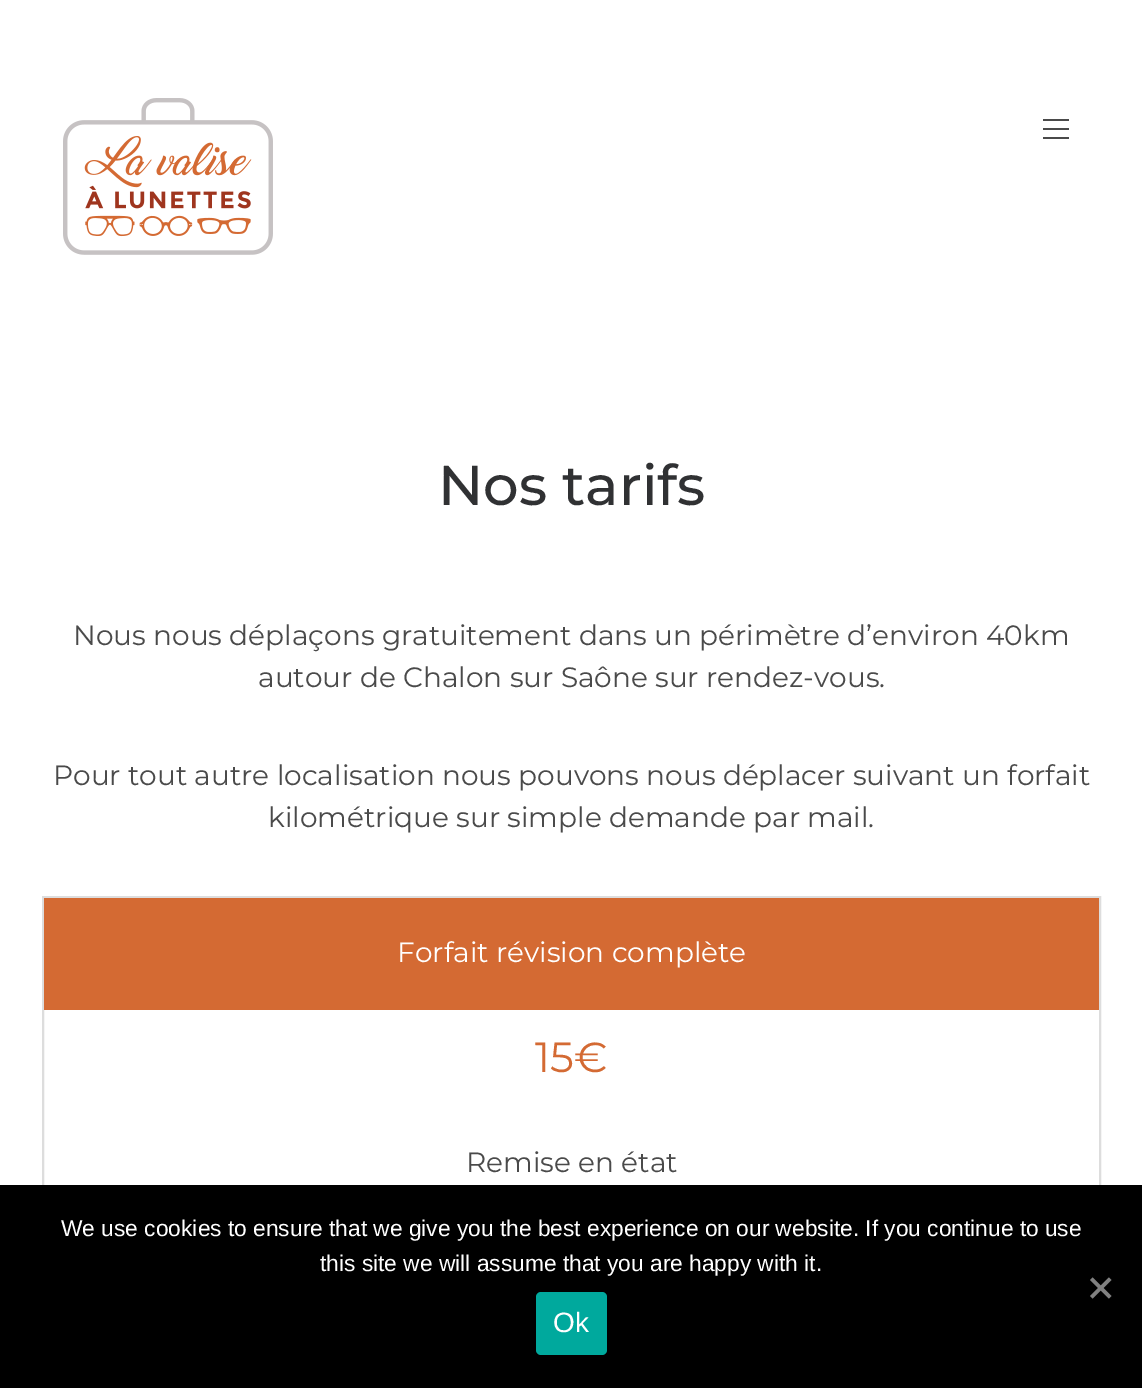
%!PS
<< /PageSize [1142 1388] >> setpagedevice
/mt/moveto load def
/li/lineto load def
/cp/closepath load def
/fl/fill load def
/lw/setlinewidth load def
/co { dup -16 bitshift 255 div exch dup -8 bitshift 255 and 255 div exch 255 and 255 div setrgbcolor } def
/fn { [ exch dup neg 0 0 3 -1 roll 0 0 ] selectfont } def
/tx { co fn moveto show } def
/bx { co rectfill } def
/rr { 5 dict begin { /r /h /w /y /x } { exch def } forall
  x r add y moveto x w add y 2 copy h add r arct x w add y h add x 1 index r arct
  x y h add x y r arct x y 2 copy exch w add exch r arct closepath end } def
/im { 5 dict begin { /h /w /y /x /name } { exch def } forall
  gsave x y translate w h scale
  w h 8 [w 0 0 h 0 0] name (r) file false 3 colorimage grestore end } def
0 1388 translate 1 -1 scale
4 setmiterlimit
0 0 1142 1388 16#FFFFFF bx
(media/1.raw) 63 98 210 157 im
1043 119 26 2 16#4A4A4A bx
1043 128 26 2 16#4A4A4A bx
1043 137 26 2 16#4A4A4A bx
16#DDDDDD co
2 lw
43 897 1057 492 rectstroke
44 898 1055 112 16#D46A33 bx
0 1185 1142 203 16#000000 bx
16#808080 co
1109 1277.5 mt 1111.5 1280 li 1092.5 1298.5 li 1090 1296 li cp fl
1090 1280 mt 1092.5 1277.5 li 1111.5 1296 li 1109 1298.5 li cp fl
16#00A99D co
536 1292 71 63 5 rr fl
(Nos tarifs) 438 505 /Montserrat-Medium 56 16#303133 tx
(Nous nous déplaçons gratuitement dans un périmètre d’environ 40km) 73 645 /Montserrat-Regular 28 16#4A4A4A tx
(autour de Chalon sur Saône sur rendez-vous.) 258 687 /Montserrat-Regular 28 16#4A4A4A tx
(Pour tout autre localisation nous pouvons nous déplacer suivant un forfait) 53 785 /Montserrat-Regular 28 16#4A4A4A tx
(kilométrique sur simple demande par mail.) 268 827 /Montserrat-Regular 28 16#4A4A4A tx
(Forfait révision complète) 397 962 /Montserrat-Regular 28 16#FFFFFF tx
(15€) 535 1072 /Montserrat-Regular 42 16#D46A33 tx
(Remise en état) 466 1172 /Montserrat-Regular 28 16#4A4A4A tx
(We use cookies to ensure that we give you the best experience on our website. If you continue to use) 61 1236 /LiberationSans-Regular 22.75 16#FFFFFF tx
(this site we will assume that you are happy with it.) 320 1271 /LiberationSans-Regular 22.75 16#FFFFFF tx
(Ok) 553 1332 /LiberationSans-Regular 28 16#FFFFFF tx
showpage
